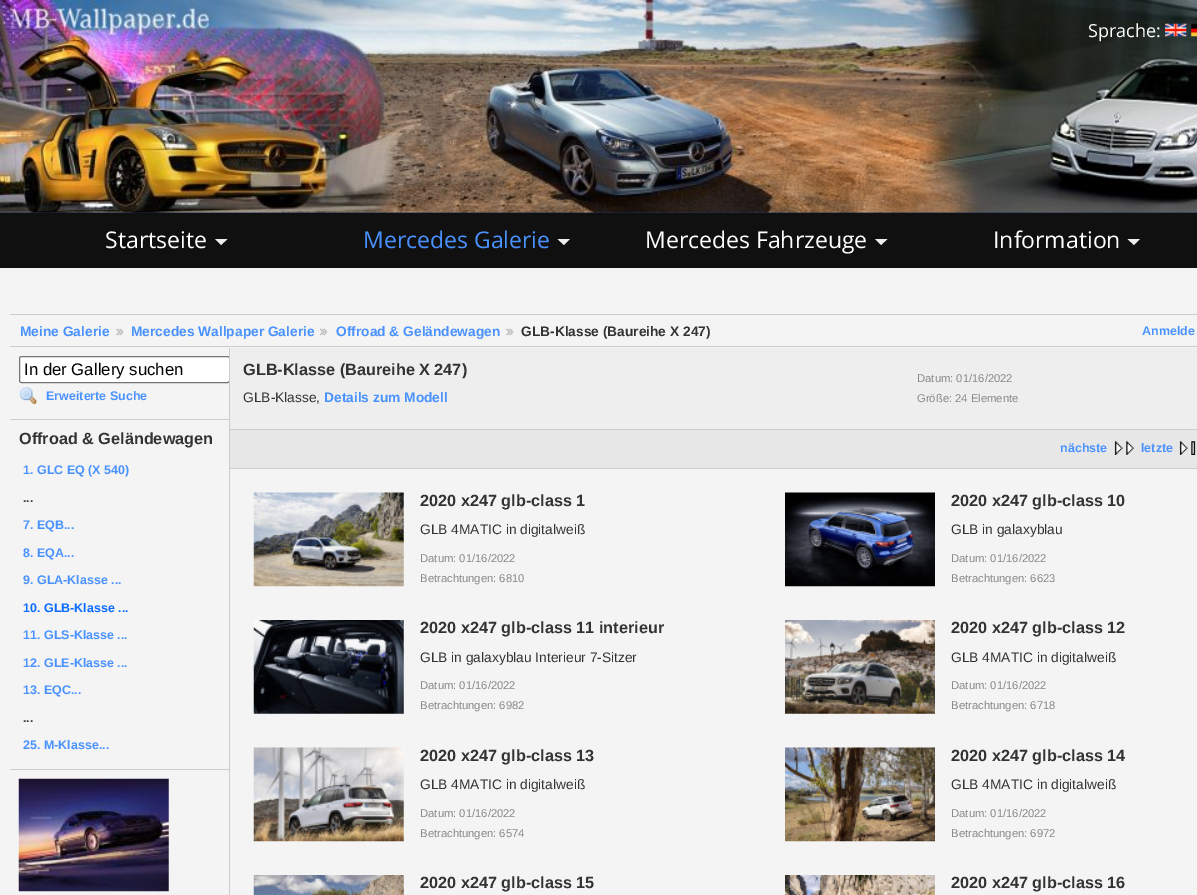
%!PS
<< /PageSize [1197 895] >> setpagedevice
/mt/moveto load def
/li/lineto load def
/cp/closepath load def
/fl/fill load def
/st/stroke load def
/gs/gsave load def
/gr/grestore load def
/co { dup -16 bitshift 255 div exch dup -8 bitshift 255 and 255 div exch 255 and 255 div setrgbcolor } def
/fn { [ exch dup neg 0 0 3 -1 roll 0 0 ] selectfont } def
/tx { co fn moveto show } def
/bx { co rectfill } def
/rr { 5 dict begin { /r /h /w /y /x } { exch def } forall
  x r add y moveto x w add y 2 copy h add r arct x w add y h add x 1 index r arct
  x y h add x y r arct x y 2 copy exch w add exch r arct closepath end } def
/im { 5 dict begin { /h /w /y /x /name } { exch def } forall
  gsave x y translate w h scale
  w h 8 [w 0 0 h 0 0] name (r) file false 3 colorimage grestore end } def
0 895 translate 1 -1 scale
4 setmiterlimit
0 0 1197 895 16#F4F4F4 bx
0 212 1197 1 16#1E3360 bx
(media/1.raw) 0 0 1197 213 im
(media/2.raw) 1165 23 22 14 im
(media/3.raw) 1191 23 6 14 im
0 213 1197 55 16#101010 bx
16#EEEEEE co
215 239 mt 227.5 239 li 221 245 li cp fl
557.5 239 mt 570 239 li 564 245 li cp fl
875 239 mt 887.5 239 li 881 245 li cp fl
1127.5 239 mt 1140 239 li 1134 245 li cp fl
10 314 1187 1 16#CCCCCC bx
10 346 1187 1 16#CCCCCC bx
(media/4.raw) 116 328 8 8 im
(media/5.raw) 320 328 8 8 im
(media/6.raw) 506 328 8 8 im
229 348 1 547 16#CCCCCC bx
10 419 219 1 16#CCCCCC bx
gs
10 348 219 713 rectclip
16#FFFFFF co
19.5 356.5 210 26 2 rr gs fl gr
16#767676 co
st
gr
(media/7.raw) 19 387 18 18 im
10 769 219 1 16#CCCCCC bx
(media/8.raw) 18 778 151 114 im
230 348 967 81 16#EEEEEE bx
230 429 967 1 16#CCCCCC bx
230 430 967 38 16#E7E7E7 bx
230 468 967 1 16#CCCCCC bx
(media/9.raw) 1114 441 20 14 im
(media/10.raw) 1179 441 17 14 im
(media/11.raw) 253 492 151 95 im
(media/12.raw) 785 492 150 95 im
(media/13.raw) 253 620 151 94 im
(media/14.raw) 785 620 150 94 im
(media/15.raw) 253 747 151 95 im
(media/16.raw) 785 747 150 95 im
(media/17.raw) 253 875 151 20 im
(media/18.raw) 785 875 150 20 im
(Sprache:) 1088 37 /OpenSans-Regular 18 16#FFFFFF tx
(Startseite) 105 248 /OpenSans-Regular 23 16#FFFFFF tx
(Mercedes Galerie) 363 248 /OpenSans-Regular 23 16#4992FF tx
(Mercedes Fahrzeuge) 645 248 /OpenSans-Regular 23 16#FFFFFF tx
(Information) 993 248 /OpenSans-Regular 23 16#FFFFFF tx
(Meine Galerie) 20 336 /LiberationSans-Bold 13.75 16#4992FF tx
(Mercedes Wallpaper Galerie) 131 336 /LiberationSans-Bold 13.75 16#4992FF tx
(Offroad & Geländewagen) 336 336 /LiberationSans-Bold 13.75 16#4992FF tx
(GLB-Klasse \(Baureihe X 247\)) 521 336 /LiberationSans-Bold 13.75 16#333333 tx
(Anmelde) 1142 335 /LiberationSans-Bold 12.5 16#4992FF tx
(In der Gallery suchen) 24 375 /LiberationSans-Regular 16.75 16#000000 tx
(Erweiterte Suche) 46 400 /LiberationSans-Bold 12.5 16#4992FF tx
(Offroad & Geländewagen) 19 444 /LiberationSans-Bold 16.25 16#333333 tx
(1. GLC EQ \(X 540\)) 23 474 /LiberationSans-Bold 12.5 16#4992FF tx
(...) 23 502 /LiberationSans-Bold 12.5 16#333333 tx
(7. EQB...) 23 529 /LiberationSans-Bold 12.5 16#4992FF tx
(8. EQA...) 23 557 /LiberationSans-Bold 12.5 16#4992FF tx
(9. GLA-Klasse ...) 23 584 /LiberationSans-Bold 12.5 16#4992FF tx
(10. GLB-Klasse ...) 23 612 /LiberationSans-Bold 12.5 16#0B6CFF tx
(11. GLS-Klasse ...) 23 639 /LiberationSans-Bold 12.5 16#4992FF tx
(12. GLE-Klasse ...) 23 667 /LiberationSans-Bold 12.5 16#4992FF tx
(13. EQC...) 23 694 /LiberationSans-Bold 12.5 16#4992FF tx
(...) 23 722 /LiberationSans-Bold 12.5 16#333333 tx
(25. M-Klasse...) 23 749 /LiberationSans-Bold 12.5 16#4992FF tx
(GLB-Klasse \(Baureihe X 247\)) 243 375 /LiberationSans-Bold 16.25 16#333333 tx
(GLB-Klasse,) 243 402 /LiberationSans-Regular 13.75 16#333333 tx
(Details zum Modell) 324 402 /LiberationSans-Bold 13.75 16#4992FF tx
(Datum: 01/16/2022) 917 382 /LiberationSans-Regular 11.25 16#888888 tx
(Größe: 24 Elemente) 917 402 /LiberationSans-Regular 11.25 16#888888 tx
(nächste) 1060 452 /LiberationSans-Bold 12.5 16#4992FF tx
(letzte) 1141 452 /LiberationSans-Bold 12.5 16#4992FF tx
(2020 x247 glb-class 1) 420 506 /LiberationSans-Bold 16.25 16#333333 tx
(GLB 4MATIC in digitalweiß) 420 534 /LiberationSans-Regular 13.75 16#333333 tx
(Datum: 01/16/2022) 420 562 /LiberationSans-Regular 11.25 16#888888 tx
(Betrachtungen: 6810) 420 582 /LiberationSans-Regular 11.25 16#888888 tx
(2020 x247 glb-class 10) 951 506 /LiberationSans-Bold 16.25 16#333333 tx
(GLB in galaxyblau) 951 534 /LiberationSans-Regular 13.75 16#333333 tx
(Datum: 01/16/2022) 951 562 /LiberationSans-Regular 11.25 16#888888 tx
(Betrachtungen: 6623) 951 582 /LiberationSans-Regular 11.25 16#888888 tx
(2020 x247 glb-class 11 interieur) 420 633 /LiberationSans-Bold 16.25 16#333333 tx
(GLB in galaxyblau Interieur 7-Sitzer) 420 662 /LiberationSans-Regular 13.75 16#333333 tx
(Datum: 01/16/2022) 420 689 /LiberationSans-Regular 11.25 16#888888 tx
(Betrachtungen: 6982) 420 709 /LiberationSans-Regular 11.25 16#888888 tx
(2020 x247 glb-class 12) 951 633 /LiberationSans-Bold 16.25 16#333333 tx
(GLB 4MATIC in digitalweiß) 951 662 /LiberationSans-Regular 13.75 16#333333 tx
(Datum: 01/16/2022) 951 689 /LiberationSans-Regular 11.25 16#888888 tx
(Betrachtungen: 6718) 951 709 /LiberationSans-Regular 11.25 16#888888 tx
(2020 x247 glb-class 13) 420 761 /LiberationSans-Bold 16.25 16#333333 tx
(GLB 4MATIC in digitalweiß) 420 789 /LiberationSans-Regular 13.75 16#333333 tx
(Datum: 01/16/2022) 420 817 /LiberationSans-Regular 11.25 16#888888 tx
(Betrachtungen: 6574) 420 837 /LiberationSans-Regular 11.25 16#888888 tx
(2020 x247 glb-class 14) 951 761 /LiberationSans-Bold 16.25 16#333333 tx
(GLB 4MATIC in digitalweiß) 951 789 /LiberationSans-Regular 13.75 16#333333 tx
(Datum: 01/16/2022) 951 817 /LiberationSans-Regular 11.25 16#888888 tx
(Betrachtungen: 6972) 951 837 /LiberationSans-Regular 11.25 16#888888 tx
(2020 x247 glb-class 15) 420 888 /LiberationSans-Bold 16.25 16#333333 tx
(2020 x247 glb-class 16) 951 888 /LiberationSans-Bold 16.25 16#333333 tx
showpage
